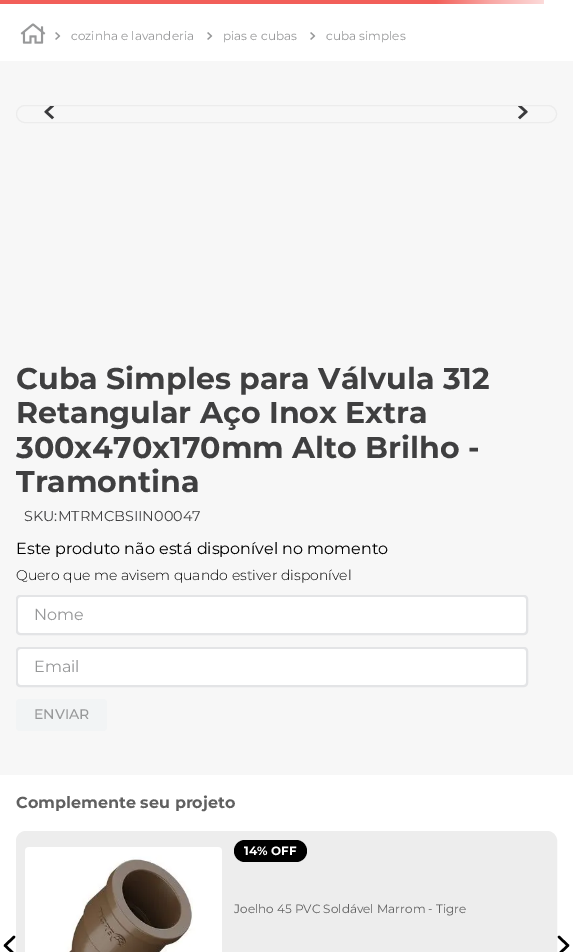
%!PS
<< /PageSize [573 952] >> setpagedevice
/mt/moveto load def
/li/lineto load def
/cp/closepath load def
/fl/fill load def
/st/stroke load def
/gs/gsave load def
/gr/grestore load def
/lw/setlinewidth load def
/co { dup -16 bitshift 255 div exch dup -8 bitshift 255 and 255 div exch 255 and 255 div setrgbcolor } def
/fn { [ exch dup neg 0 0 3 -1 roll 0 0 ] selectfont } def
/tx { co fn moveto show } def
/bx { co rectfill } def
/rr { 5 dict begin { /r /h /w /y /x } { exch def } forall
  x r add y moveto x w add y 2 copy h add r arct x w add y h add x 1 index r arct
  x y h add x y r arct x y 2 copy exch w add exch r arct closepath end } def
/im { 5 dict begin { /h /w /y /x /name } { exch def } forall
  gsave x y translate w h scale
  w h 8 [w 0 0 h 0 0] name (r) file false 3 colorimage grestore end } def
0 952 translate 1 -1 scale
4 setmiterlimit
0 0 573 952 16#FFFFFF bx
gs 0 0 mt 544 0 li 544 4 li 0 4 li cp clip newpath
<< /ShadingType 2 /ColorSpace /DeviceRGB /Coords [0 2 544 2] /Extend [true true] /Function << /FunctionType 3 /Domain [0 1] /Functions [<< /FunctionType 2 /Domain [0 1] /C0 [.949 .373 .349] /C1 [.949 .373 .349] /N 1 >> << /FunctionType 2 /Domain [0 1] /C0 [.949 .373 .349] /C1 [.973 .651 .639] /N 1 >> << /FunctionType 2 /Domain [0 1] /C0 [.973 .651 .639] /C1 [.988 .859 .855] /N 1 >>] /Bounds [.8 .9] /Encode [0 1 0 1 0 1] >> >> shfill gr
(media/1.raw) 20 23 26 21 im
(media/2.raw) 55 32 6 8 im
(media/2.raw) 207 32 6 8 im
(media/2.raw) 310 32 6 8 im
0 61 573 714 16#F7F7F7 bx
16#ECECEC co
16.5 105.5 540 17 8.5 rr st
(media/3.raw) 44 106 11 14 im
(media/4.raw) 518 106 10 14 im
16#E3E4E6 co
2 lw
17 596 510 38 3 rr st
16#FFFFFF co
18 597 508 36 4 rr fl
16#E3E4E6 co
17 648 510 38 3 rr st
16#FFFFFF co
18 649 508 36 4 rr fl
16#F2F4F5 co
16 699 91 32 4 rr fl
16#EDEDED co
16.5 831.5 540 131 9.5 rr gs fl gr
1 lw
st
(media/5.raw) 25 847 197 105 im
16#000000 co
234 840 73 22 11 rr fl
2.5 lw
1 setlinecap
1 setlinejoin
14 937 mt 5 945.5 li 14 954 li st
559 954 mt 568 945.5 li 559 937 li st
(cozinha e lavanderia) 71 40 /Montserrat-Regular 12 16#979899 tx
(pias e cubas) 223 40 /Montserrat-Regular 12 16#979899 tx
(cuba simples) 326 40 /Montserrat-Regular 12 16#979899 tx
(Cuba Simples para Válvula 312) 16 389 /Montserrat-Bold 30 16#3F3F40 tx
(Retangular Aço Inox Extra) 16 423 /Montserrat-Bold 30 16#3F3F40 tx
(300x470x170mm Alto Brilho -) 16 458 /Montserrat-Bold 30 16#3F3F40 tx
(Tramontina) 16 492 /Montserrat-Bold 30 16#3F3F40 tx
(SKU:MTRMCBSIIN00047) 24 521 /Montserrat-Regular 14.4 16#3F3F40 tx
(Este produto não está disponível no momento) 16 554 /Montserrat-Regular 16 16#000000 tx
(Quero que me avisem quando estiver disponível) 16 580 /Montserrat-Light 14 16#000000 tx
(Nome) 34 620 /Montserrat-Regular 16 16#979899 tx
(Email) 34 672 /Montserrat-Regular 16 16#979899 tx
(ENVIAR) 34 719 /Montserrat-Medium 14 16#979899 tx
(Complemente seu projeto) 16 808 /Montserrat-Bold 16 16#606060 tx
(14% OFF) 244 855 /Montserrat-Bold 12 16#FFFFFF tx
(Joelho 45 PVC Soldável Marrom - Tigre) 234 913 /Montserrat-Regular 12 16#606060 tx
showpage
